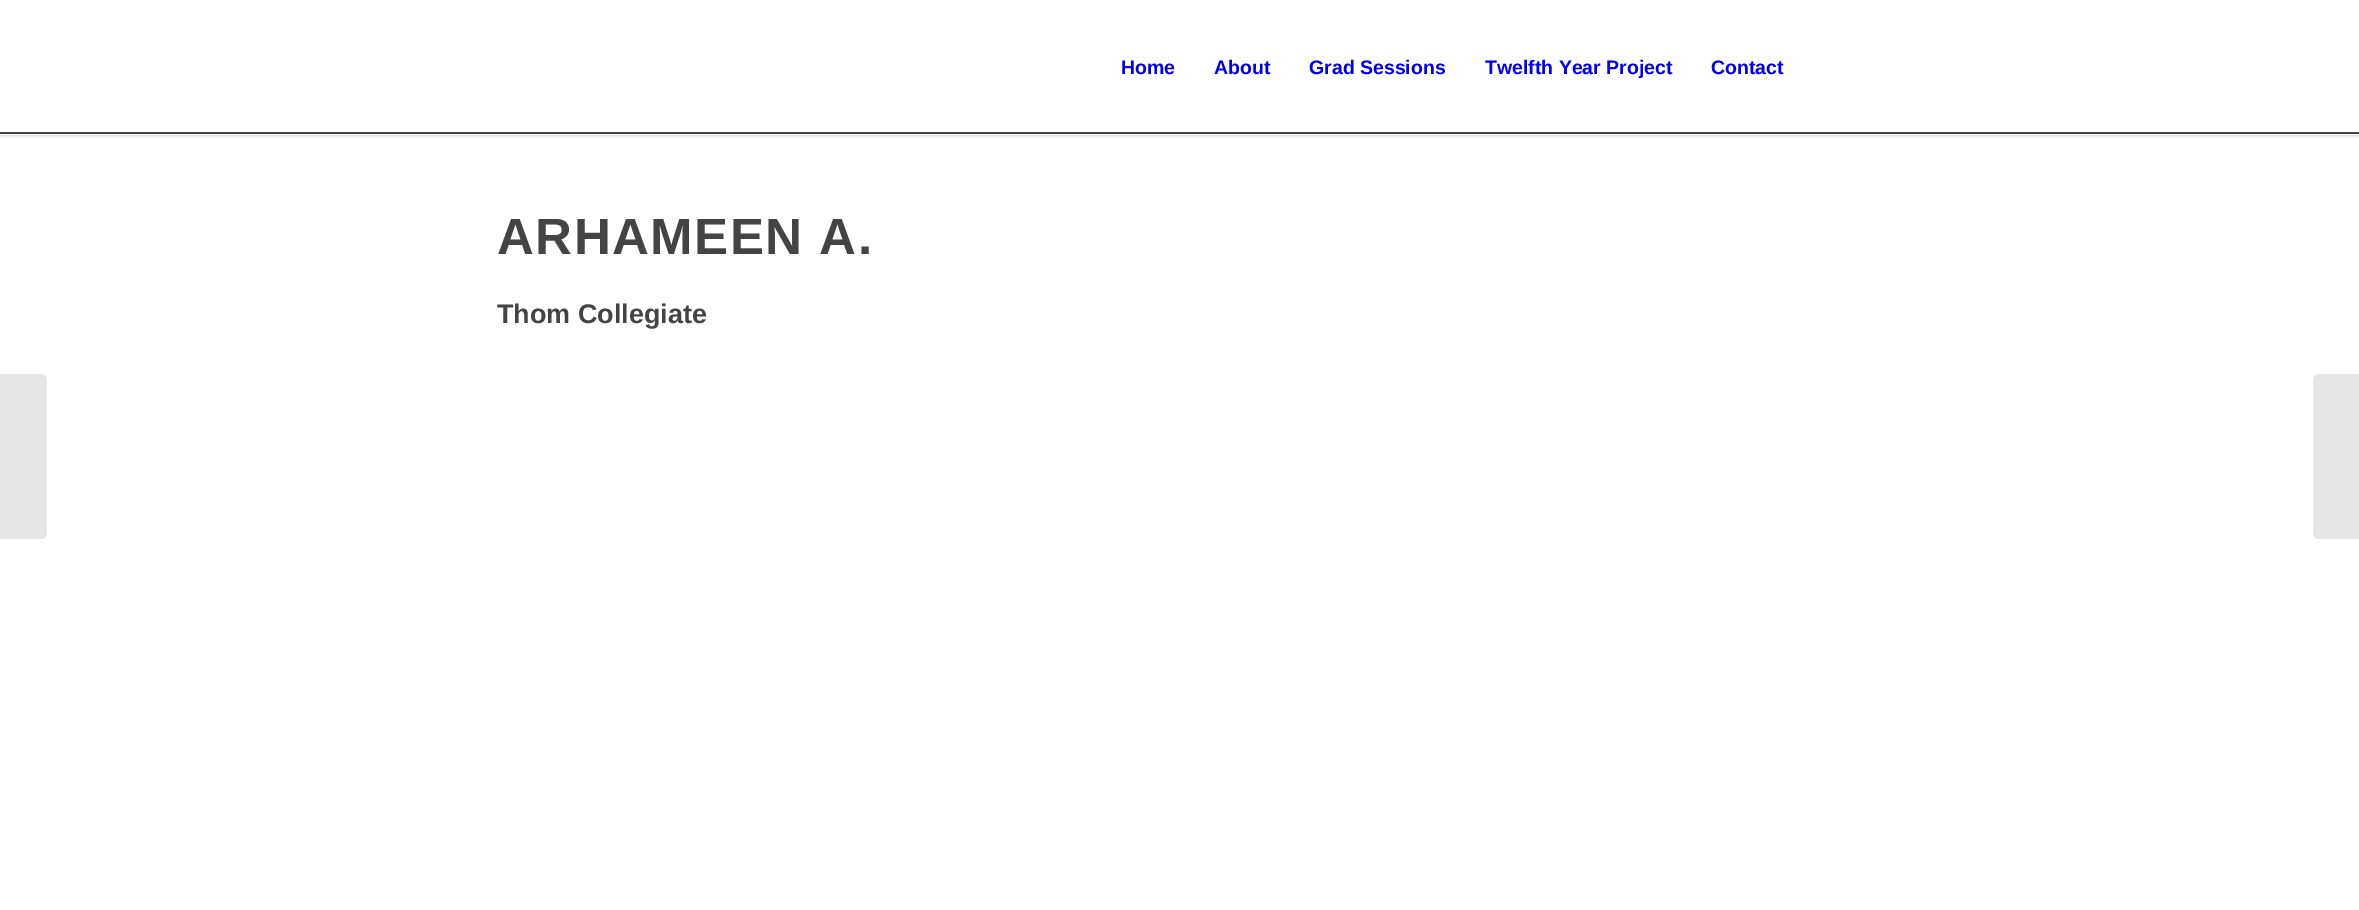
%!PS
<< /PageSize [2359 910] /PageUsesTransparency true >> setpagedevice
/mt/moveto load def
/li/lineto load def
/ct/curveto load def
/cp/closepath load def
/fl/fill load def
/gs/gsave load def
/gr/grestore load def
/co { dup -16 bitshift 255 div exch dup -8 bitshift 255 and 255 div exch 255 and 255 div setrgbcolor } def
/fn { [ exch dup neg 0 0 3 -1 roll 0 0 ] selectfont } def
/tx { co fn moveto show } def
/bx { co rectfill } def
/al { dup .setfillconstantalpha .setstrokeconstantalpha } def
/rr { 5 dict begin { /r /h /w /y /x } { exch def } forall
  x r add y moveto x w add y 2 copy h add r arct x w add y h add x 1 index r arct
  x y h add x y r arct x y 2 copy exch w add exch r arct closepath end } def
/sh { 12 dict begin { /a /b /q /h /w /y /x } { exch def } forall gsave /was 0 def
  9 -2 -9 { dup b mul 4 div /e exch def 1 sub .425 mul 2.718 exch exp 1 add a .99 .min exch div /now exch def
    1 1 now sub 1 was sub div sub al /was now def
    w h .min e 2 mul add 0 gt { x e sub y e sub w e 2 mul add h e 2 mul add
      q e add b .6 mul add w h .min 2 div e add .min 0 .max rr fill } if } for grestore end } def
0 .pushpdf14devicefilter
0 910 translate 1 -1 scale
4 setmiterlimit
0 0 2359 910 16#FFFFFF bx
0 132 2359 2 16#444444 bx
gs
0 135 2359 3 rectclip
16#000000 co
-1 -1 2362 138 0 1.5 .1 sh
gr
16#E6E6E6 co
0 374 mt 41 374 li 44.5 374 47 376.5 47 380 ct 47 533 li 47 536.5 44.5 539 41 539 ct 0 539 li cp fl
2319 374 mt 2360 374 li 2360 539 li 2319 539 li 2315.5 539 2313 536.5 2313 533 ct 2313 380 li 2313 376.5 2315.5 374 2319 374 ct cp fl
(Home) 1121 74 /LiberationSans-Bold 19.5 16#0000EE tx
(About) 1214 74 /LiberationSans-Bold 19.5 16#0000EE tx
(Grad Sessions) 1309 74 /LiberationSans-Bold 19.5 16#0000EE tx
(Twelfth Year Project) 1485 74 /LiberationSans-Bold 19.5 16#0000EE tx
(Contact) 1711 74 /LiberationSans-Bold 19.5 16#0000EE tx
/LiberationSans-Bold 51 fn
16#444444 co
497 254 mt 1.5 0 (ARHAMEEN A.) ashow
(Thom Collegiate) 497 323 /LiberationSans-Bold 27 16#444444 tx
.poppdf14devicefilter showpage
